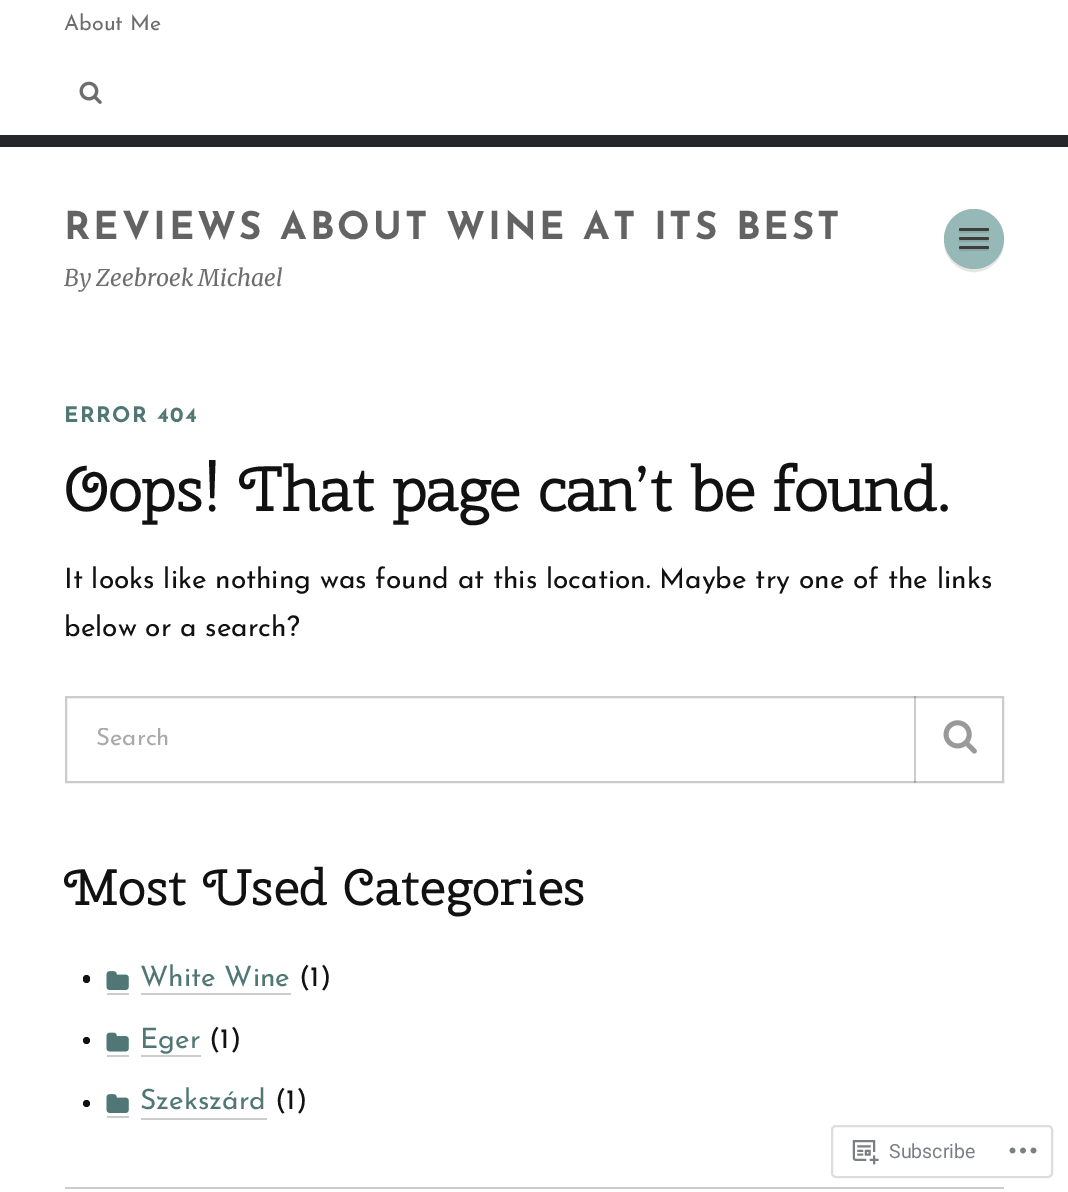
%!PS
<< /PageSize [1068 1192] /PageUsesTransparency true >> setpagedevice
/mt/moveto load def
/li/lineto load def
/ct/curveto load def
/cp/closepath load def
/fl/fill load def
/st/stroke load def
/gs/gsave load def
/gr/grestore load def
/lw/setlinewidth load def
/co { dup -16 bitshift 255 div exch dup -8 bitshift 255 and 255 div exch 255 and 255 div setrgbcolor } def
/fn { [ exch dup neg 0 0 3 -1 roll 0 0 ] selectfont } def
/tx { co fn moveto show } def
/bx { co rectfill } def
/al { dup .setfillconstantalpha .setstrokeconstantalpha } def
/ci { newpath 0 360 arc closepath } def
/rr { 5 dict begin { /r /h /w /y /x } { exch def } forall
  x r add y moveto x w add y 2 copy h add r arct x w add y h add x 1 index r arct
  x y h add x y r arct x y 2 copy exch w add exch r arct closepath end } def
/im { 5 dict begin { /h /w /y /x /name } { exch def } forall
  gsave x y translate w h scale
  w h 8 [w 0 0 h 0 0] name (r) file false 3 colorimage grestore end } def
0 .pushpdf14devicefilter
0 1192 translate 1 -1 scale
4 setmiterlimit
0 0 1068 1192 16#FFFFFF bx
(media/1.raw) 79 81 23 23 im
0 135 1068 12 16#26272B bx
16#E6E6E6 co
944 245 mt 945 252 948 259 954 264 ct 975 284 1009 264 1003 236 ct 1006 273 952 281 944 245 ct cp fl
16#96B8B6 co
974 239 30 ci fl
16#87A6A4 co
959 231 mt 957.5 233.5 962 233 965 233 ct 988 233 li 989 232.5 989.5 231 988.5 230 ct 987.5 232 983 231 982.5 231 ct 979.5 231 960.5 231.5 959 231 ct cp fl
16#3D3D3D co
959 228 30 3 1.5 rr fl
16#87A6A4 co
959 240 mt 957.5 242.5 962 242 965 242 ct 988 242 li 989 241.5 989.5 240 988.5 239 ct 987.5 241 983 240 982.5 240 ct 979.5 240 960.5 240.5 959 240 ct cp fl
16#3D3D3D co
959 237 30 3 1.5 rr fl
16#87A6A4 co
959 249 mt 957.5 251.5 962 251 965 251 ct 988 251 li 989 250.5 989.5 249 988.5 248 ct 987.5 250 983 249 982.5 249 ct 979.5 249 960.5 249.5 959 249 ct cp fl
16#3D3D3D co
959 246 30 3 1.5 rr fl
16#CCCCCC co
2 lw
66 697 937 85 rectstroke
0.2 al
914 696 2 87 16#000000 bx
1 al
(media/2.raw) 943 720 34 34 im
16#111111 co
83 975 7 8 3.5 rr fl
(media/3.raw) 106 971 23 19 im
107 993 22 2 16#CCCCCC bx
141 993 150 2 16#CCCCCC bx
16#111111 co
86.5 1040.5 3.5 ci fl
(media/4.raw) 106 1032 23 20 im
107 1055 22 2 16#CCCCCC bx
141 1055 60 2 16#CCCCCC bx
16#111111 co
86.5 1103.5 3.5 ci fl
(media/3.raw) 106 1094 23 19 im
107 1116 22 2 16#CCCCCC bx
141 1118 126 2 16#CCCCCC bx
65 1187 939 2 16#CCCCCC bx
16#DDDDDF co
832 1126 220 51 4 rr st
(media/5.raw) 852 1140 27 25 im
(media/6.raw) 1009 1147 28 7 im
(About Me) 64 30 /JosefinSans-Regular 21.5 16#6D6D6D tx
/JosefinSans-Bold 38.25 fn
16#636363 co
64 239 mt 3 0 (REVIEWS ABOUT WINE AT ITS BEST) ashow
(By Zeebroek Michael) 64 286 /Merriweather-LightItalic 23 16#6D6D6D tx
/JosefinSans-Bold 21.5 fn
16#507675 co
64 422 mt 1.5 0 (ERROR 404) ashow
/CherrySwash-Regular 63.75 fn
16#111111 co
64 511 mt -1.5 0 (Oops! That page can’t be found.) ashow
(It looks like nothing was found at this location. Maybe try one of the links) 64 588 /JosefinSans-Regular 28.05 16#111111 tx
(below or a search?) 64 636 /JosefinSans-Regular 28.05 16#111111 tx
gs
96 728 816 24 rectclip
(Search) 96 745 /JosefinSans-Regular 24 16#A9A9A9 tx
gr
(Most Used Categories) 64 905 /CherrySwash-Regular 51 16#111111 tx
(White Wine) 140 986 /JosefinSans-Regular 28.05 16#507675 tx
(\(1\)) 299 986 /JosefinSans-Regular 28.05 16#111111 tx
(Eger) 140 1048 /JosefinSans-Regular 28.05 16#507675 tx
(\(1\)) 209 1048 /JosefinSans-Regular 28.05 16#111111 tx
(Szekszárd) 140 1109 /JosefinSans-Regular 28.05 16#507675 tx
(\(1\)) 275 1109 /JosefinSans-Regular 28.05 16#111111 tx
(Subscribe) 889 1158 /Roboto-Regular 19.5 16#7B7F85 tx
.poppdf14devicefilter showpage
